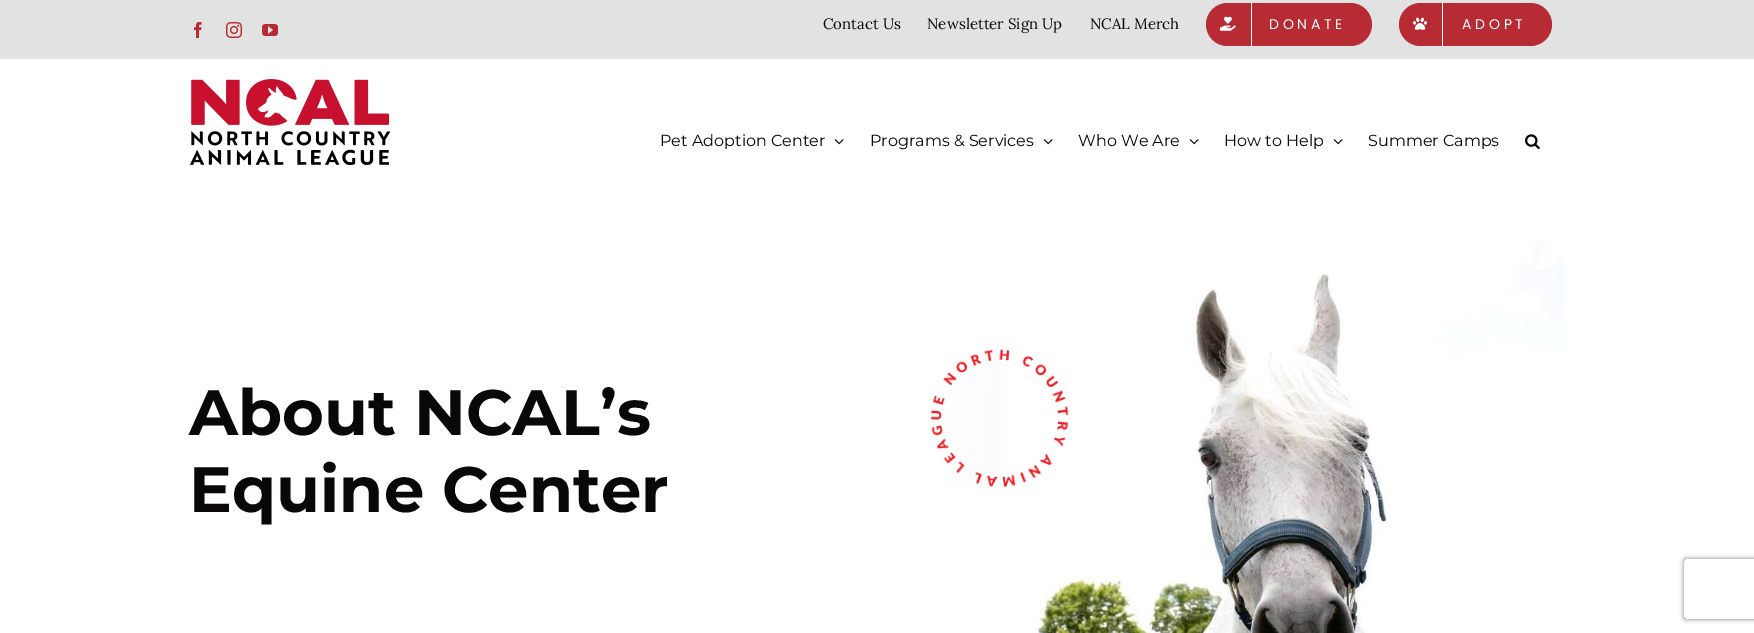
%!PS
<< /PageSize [1754 633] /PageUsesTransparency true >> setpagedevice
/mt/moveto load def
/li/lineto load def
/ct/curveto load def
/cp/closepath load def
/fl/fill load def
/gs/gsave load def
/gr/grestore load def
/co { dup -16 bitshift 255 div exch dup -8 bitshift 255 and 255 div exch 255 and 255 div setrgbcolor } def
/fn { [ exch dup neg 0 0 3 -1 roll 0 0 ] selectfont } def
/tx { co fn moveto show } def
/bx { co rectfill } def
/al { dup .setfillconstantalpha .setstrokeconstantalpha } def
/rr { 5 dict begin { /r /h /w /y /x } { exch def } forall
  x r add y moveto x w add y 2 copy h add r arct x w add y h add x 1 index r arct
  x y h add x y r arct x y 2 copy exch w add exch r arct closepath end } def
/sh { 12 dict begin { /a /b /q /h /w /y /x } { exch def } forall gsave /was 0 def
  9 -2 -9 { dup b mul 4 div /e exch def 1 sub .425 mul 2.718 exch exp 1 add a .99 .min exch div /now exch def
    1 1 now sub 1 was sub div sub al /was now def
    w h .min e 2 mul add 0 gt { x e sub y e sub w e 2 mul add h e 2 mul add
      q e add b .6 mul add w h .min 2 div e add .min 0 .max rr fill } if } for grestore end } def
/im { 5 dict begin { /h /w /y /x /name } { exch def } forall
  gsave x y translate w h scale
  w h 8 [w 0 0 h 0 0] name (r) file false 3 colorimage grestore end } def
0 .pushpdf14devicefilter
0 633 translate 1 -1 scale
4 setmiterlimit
0 0 1754 633 16#FFFFFF bx
0 0 1754 59 16#E2E2E2 bx
(media/1.raw) 194 22 8 16 im
(media/2.raw) 226 22 16 16 im
(media/3.raw) 262 24 16 12 im
16#B62B34 co
1206 3 166 43 21.5 rr fl
1251 3 1 43 16#FFFFFF bx
(media/4.raw) 1220 16 16 15 im
16#B62B34 co
1399 3 153 43 21.5 rr fl
1442 3 1 43 16#FFFFFF bx
(media/5.raw) 1413 17 14 13 im
(media/6.raw) 190 79 200 86 im
(media/7.raw) 834 139 10 6 im
(media/7.raw) 1043 139 10 6 im
(media/7.raw) 1189 139 10 6 im
(media/7.raw) 1333 139 10 6 im
(media/8.raw) 1525 134 15 16 im
(media/10.raw) 1035 240 530 393 im
(media/9.raw) 930 349 139 139 im
gs
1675 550 mt 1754 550 li 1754 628 li 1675 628 li cp 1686 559 mt 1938 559 li 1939 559 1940 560 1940 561 ct 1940 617 li 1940 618 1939 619 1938 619 ct 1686 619 li 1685 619 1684 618 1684 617 ct 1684 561 li 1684 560 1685 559 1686 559 ct cp eoclip newpath
16#808080 co
1684 559 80 60 2 2.5 1 sh
gr
(Contact Us) 823 29 /Lora-Regular 15 16#0A0708 tx
(Newsletter Sign Up) 927 29 /Lora-Regular 15 16#0A0708 tx
(NCAL Merch) 1090 29 /Lora-Regular 15 16#0A0708 tx
(D O N A T E) 1269 29 /Poppins-Regular 14 16#FFFFFF tx
(A D O P T) 1462 29 /Poppins-Regular 14 16#FFFFFF tx
(Pet Adoption Center) 660 146 /Montserrat-Regular 16 16#0A0708 tx
(Programs & Services) 870 146 /Montserrat-Regular 16 16#0A0708 tx
(Who We Are) 1078 146 /Montserrat-Regular 16 16#0A0708 tx
(How to Help) 1224 146 /Montserrat-Regular 16 16#0A0708 tx
(Summer Camps) 1368 146 /Montserrat-Regular 16 16#0A0708 tx
(About NCAL’s) 189 435 /Montserrat-Bold 64 16#0A0708 tx
(Equine Center) 189 512 /Montserrat-Bold 64 16#0A0708 tx
.poppdf14devicefilter showpage
